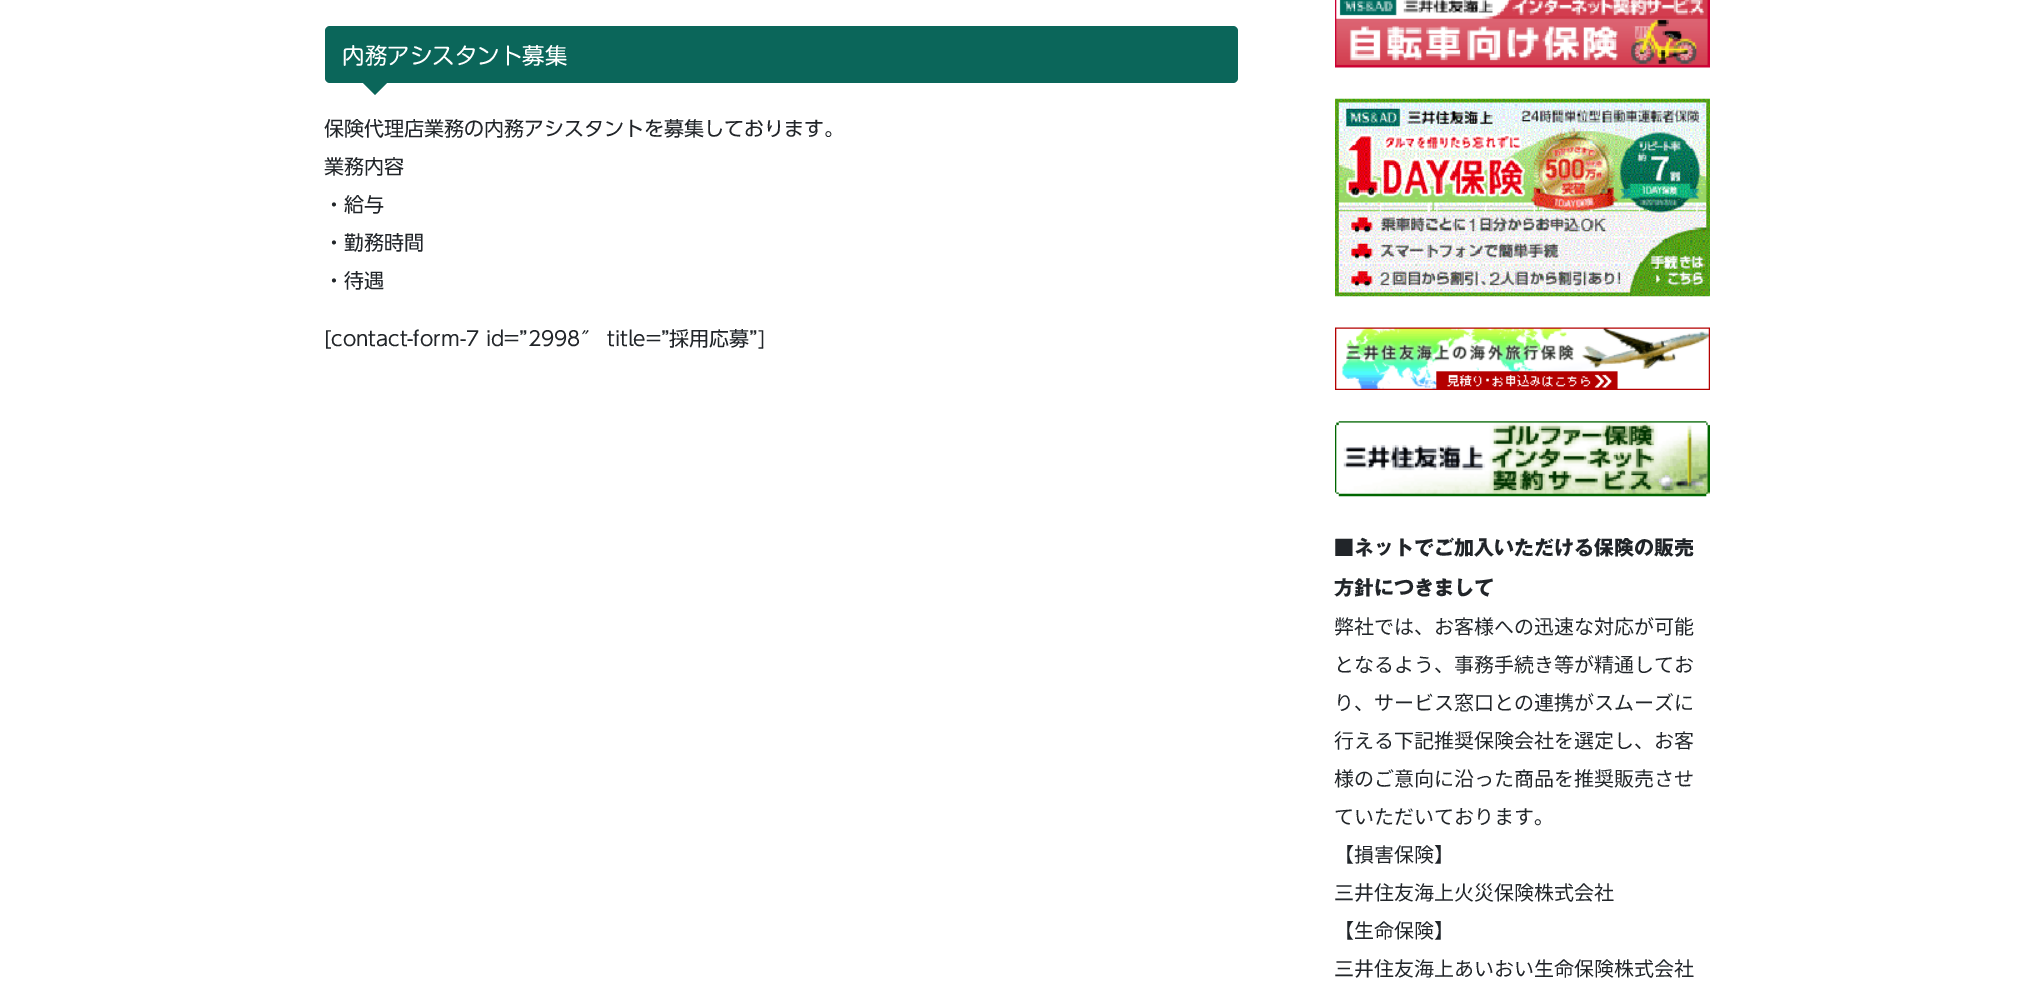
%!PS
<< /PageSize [2036 995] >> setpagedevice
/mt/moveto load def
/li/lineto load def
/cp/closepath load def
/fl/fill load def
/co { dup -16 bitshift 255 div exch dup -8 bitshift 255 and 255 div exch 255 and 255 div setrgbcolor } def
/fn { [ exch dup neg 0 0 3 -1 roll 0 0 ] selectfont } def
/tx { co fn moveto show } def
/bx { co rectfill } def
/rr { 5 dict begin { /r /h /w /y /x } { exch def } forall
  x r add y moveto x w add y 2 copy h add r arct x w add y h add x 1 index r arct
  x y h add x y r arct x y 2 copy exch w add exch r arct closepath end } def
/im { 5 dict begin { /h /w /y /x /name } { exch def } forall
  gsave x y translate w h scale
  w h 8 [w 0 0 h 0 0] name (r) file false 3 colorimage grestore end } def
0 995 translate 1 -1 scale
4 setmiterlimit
0 0 2036 995 16#FFFFFF bx
16#0B665A co
325 26 913 57 5 rr fl
362.5 82.5 mt 387.5 82.5 li 375 95 li cp fl
(media/1.raw) 1335 0 375 68 im
(media/2.raw) 1335 98 375 199 im
(media/3.raw) 1335 327 375 63 im
(media/4.raw) 1335 421 375 76 im
(内務アシスタント募集) 342 64 /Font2-Regular 22.5 16#FFFFFF tx
(保険代理店業務の内務アシスタントを募集しております。) 324 136 /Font-Regular 20 16#212529 tx
(業務内容) 324 174 /Font-Regular 20 16#212529 tx
(・給与) 324 212 /Font-Regular 20 16#212529 tx
(・勤務時間) 324 250 /Font-Regular 20 16#212529 tx
(・待遇) 324 288 /Font-Regular 20 16#212529 tx
([contact-form-7 id=”2998″ title=”採用応募”]) 324 346 /Font-Regular 20 16#212529 tx
(■ネットでご加入いただける保険の販売) 1334 555 /Font-Bold 20 16#212529 tx
(方針につきまして) 1334 595 /Font-Bold 20 16#212529 tx
(弊社では、お客様への迅速な対応が可能) 1334 634 /NotoSansJP-Regular 20 16#212529 tx
(となるよう、事務手続き等が精通してお) 1334 672 /NotoSansJP-Regular 20 16#212529 tx
(り、サービス窓口との連携がスムーズに) 1334 710 /NotoSansJP-Regular 20 16#212529 tx
(行える下記推奨保険会社を選定し、お客) 1334 748 /NotoSansJP-Regular 20 16#212529 tx
(様のご意向に沿った商品を推奨販売させ) 1334 786 /NotoSansJP-Regular 20 16#212529 tx
(ていただいております。) 1334 824 /NotoSansJP-Regular 20 16#212529 tx
(【損害保険】) 1334 862 /NotoSansJP-Regular 20 16#212529 tx
(三井住友海上火災保険株式会社) 1334 900 /NotoSansJP-Regular 20 16#212529 tx
(【生命保険】) 1334 938 /NotoSansJP-Regular 20 16#212529 tx
(三井住友海上あいおい生命保険株式会社) 1334 976 /NotoSansJP-Regular 20 16#212529 tx
showpage
